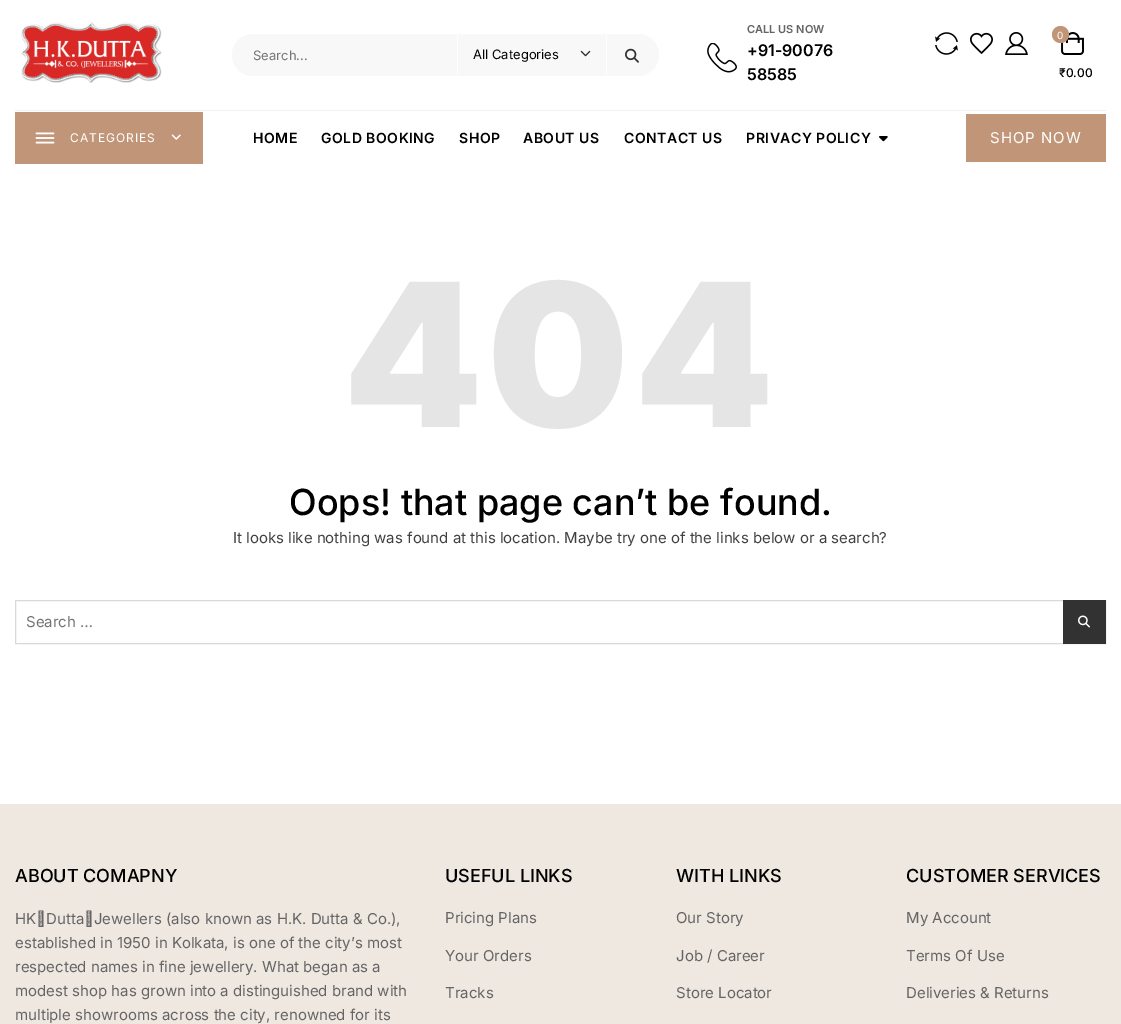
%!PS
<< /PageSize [1121 1024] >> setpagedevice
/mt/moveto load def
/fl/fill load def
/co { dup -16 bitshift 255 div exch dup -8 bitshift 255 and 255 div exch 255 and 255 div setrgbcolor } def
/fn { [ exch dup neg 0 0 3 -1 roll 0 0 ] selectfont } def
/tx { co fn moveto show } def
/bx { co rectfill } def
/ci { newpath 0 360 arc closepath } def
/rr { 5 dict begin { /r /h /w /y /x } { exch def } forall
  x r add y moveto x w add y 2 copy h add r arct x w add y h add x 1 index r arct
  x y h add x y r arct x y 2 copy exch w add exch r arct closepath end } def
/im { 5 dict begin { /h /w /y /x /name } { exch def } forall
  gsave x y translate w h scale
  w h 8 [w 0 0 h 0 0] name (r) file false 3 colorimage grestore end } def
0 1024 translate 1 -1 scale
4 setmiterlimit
0 0 1121 1024 16#FFFFFF bx
(media/1.raw) 21 22 141 61 im
16#F8F8F8 co
232 34 427 42 21 rr fl
606 35 1 40 16#FFFFFF bx
457 35 1 40 16#FFFFFF bx
(media/2.raw) 580 50 11 7 im
(media/3.raw) 625 48 14 15 im
(media/4.raw) 707 43 30 30 im
(media/5.raw) 935 32 23 23 im
(media/6.raw) 970 32 23 22 im
(media/7.raw) 1005 32 23 23 im
(media/8.raw) 1061 32 23 23 im
16#C09578 co
1060.5 34.5 8.5 ci fl
15 110 1091 1 16#F1F1F1 bx
15 112 188 52 16#C09578 bx
(media/9.raw) 35 132 20 12 im
(media/10.raw) 171 134 10 6 im
(media/11.raw) 879 136 9 6 im
966 114 140 48 16#C09578 bx
16#D9D9D9 co
15.5 600.5 1090 43 rectstroke
1063 600 43 44 16#323232 bx
(media/12.raw) 1078 615 12 13 im
0 804 1121 220 16#EFE8E0 bx
(Search...) 253 60 /Inter-Regular 13 16#757575 tx
(All Categories) 473 59 /Inter-Regular 13 16#000000 tx
(CALL US NOW) 747 33 /Inter-SemiBold 11 16#656565 tx
(+91-90076) 747 56 /Inter-SemiBold 16 16#000000 tx
(58585) 747 80 /Inter-SemiBold 16 16#000000 tx
(0) 1057 39 /Inter-Regular 10 16#FFFFFF tx
(₹0.00) 1059 77 /Inter-Medium 12 16#000000 tx
/Inter-Regular 12 fn
16#FFFFFF co
70 142 mt 1 0 (CATEGORIES) ashow
/Inter-SemiBold 14 fn
16#000000 co
253 143 mt .5 0 (HOME) ashow
321 143 mt .5 0 (GOLD BOOKING) ashow
459 143 mt .5 0 (SHOP) ashow
523 143 mt .5 0 (ABOUT US) ashow
624 143 mt .5 0 (CONTACT US) ashow
746 143 mt .5 0 (PRIVACY POLICY) ashow
/Inter-Regular 15 fn
16#FFFFFF co
990 143 mt 1 0 (SHOP NOW) ashow
/Inter-Black 200 fn
16#E5E5E5 co
343 427 mt 4 0 (404) ashow
(Oops! that page can’t be found.) 289 515 /Inter-Medium 36 16#000000 tx
(It looks like nothing was found at this location. Maybe try one of the links below or a search?) 233 543 /Inter-Regular 15 16#414141 tx
(Search …) 26 627 /Inter-Regular 15 16#757575 tx
(ABOUT COMAPNY) 15 882 /Inter-Medium 18 16#000000 tx
(HK Dutta Jewellers \(also known as H.K. Dutta & Co.\),) 15 924 /Inter-Regular 15 16#656565 tx
(established in 1950 in Kolkata, is one of the city’s most) 15 948 /Inter-Regular 15 16#656565 tx
(respected names in fine jewellery. What began as a) 15 972 /Inter-Regular 15 16#656565 tx
(modest shop has grown into a distinguished brand with) 15 996 /Inter-Regular 15 16#656565 tx
(multiple showrooms across the city, renowned for its) 15 1020 /Inter-Regular 15 16#656565 tx
(USEFUL LINKS) 445 882 /Inter-Medium 18 16#000000 tx
(Pricing Plans) 445 923 /Inter-Regular 15 16#656565 tx
(Your Orders) 445 961 /Inter-Regular 15 16#656565 tx
(Tracks) 445 998 /Inter-Regular 15 16#656565 tx
(WITH LINKS) 676 882 /Inter-Medium 18 16#000000 tx
(Our Story) 676 923 /Inter-Regular 15 16#656565 tx
(Job / Career) 676 961 /Inter-Regular 15 16#656565 tx
(Store Locator) 676 998 /Inter-Regular 15 16#656565 tx
(CUSTOMER SERVICES) 906 882 /Inter-Medium 18 16#000000 tx
(My Account) 906 923 /Inter-Regular 15 16#656565 tx
(Terms Of Use) 906 961 /Inter-Regular 15 16#656565 tx
(Deliveries & Returns) 906 998 /Inter-Regular 15 16#656565 tx
showpage
